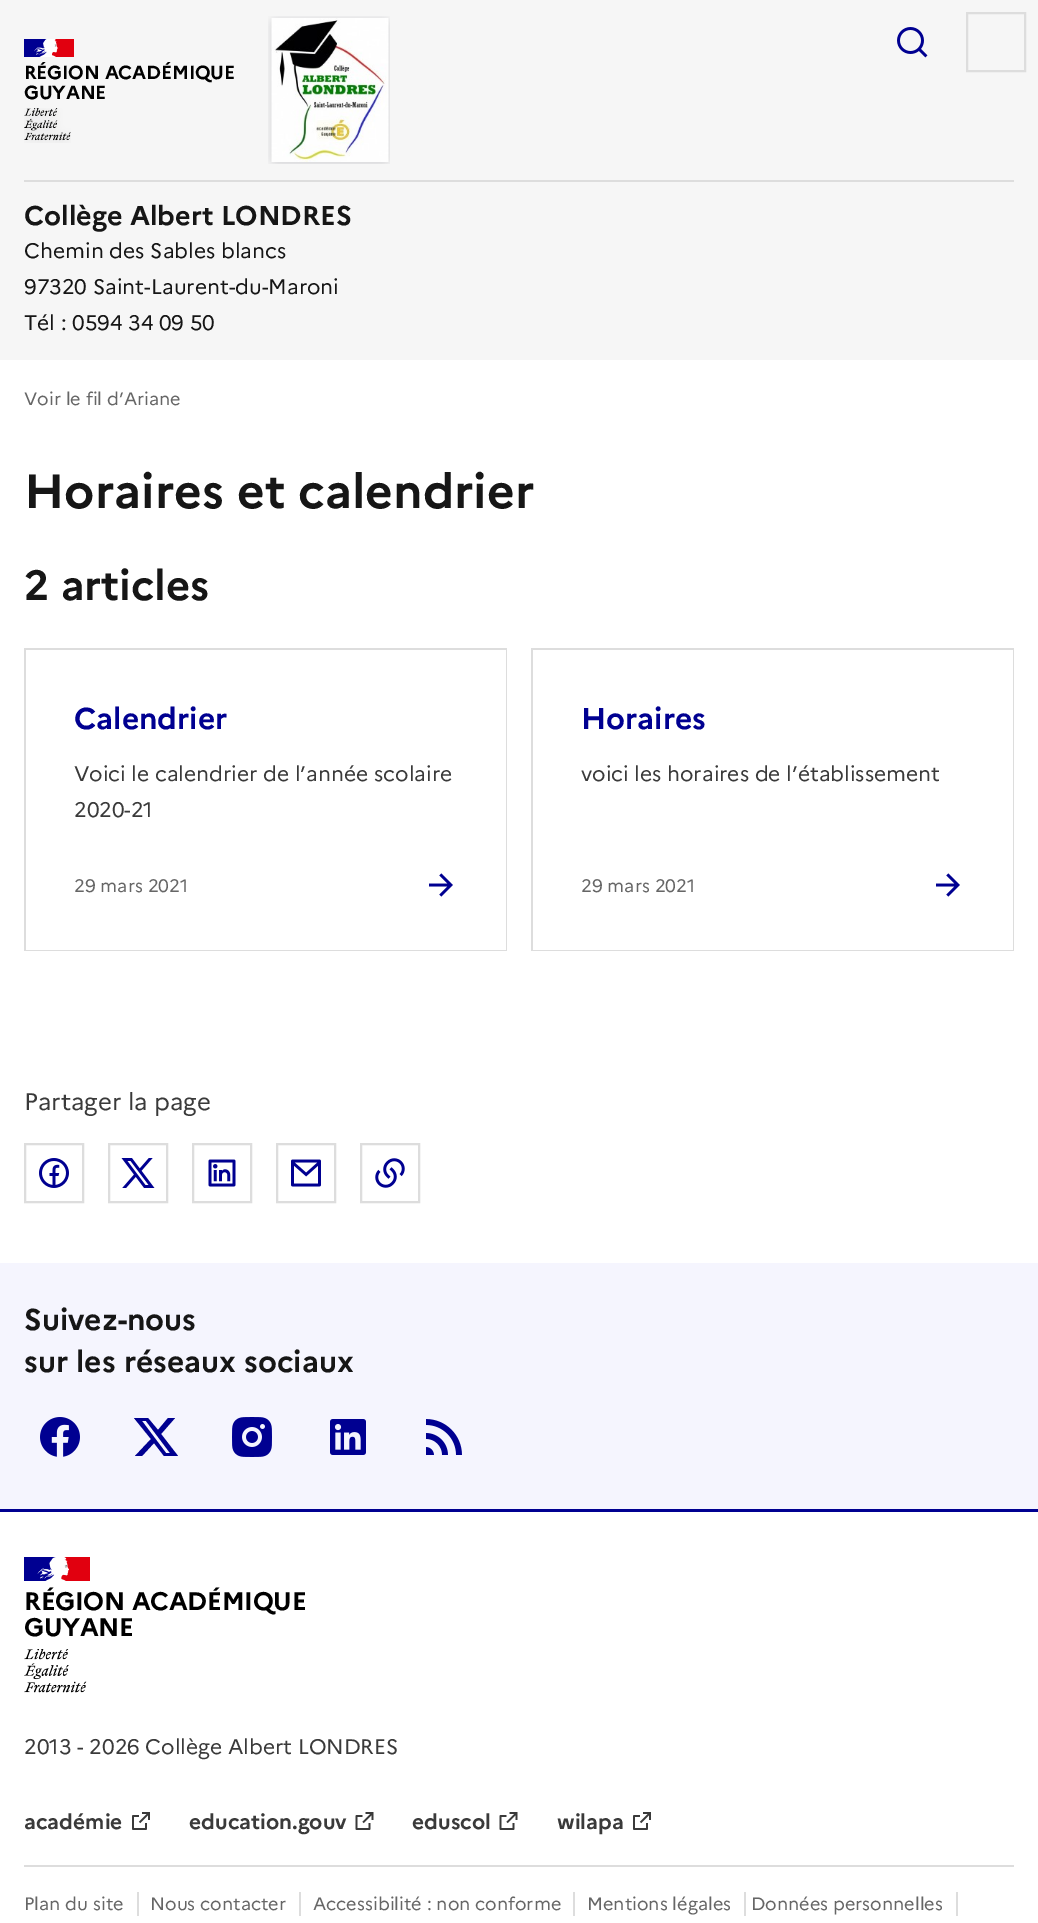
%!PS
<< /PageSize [1038 1923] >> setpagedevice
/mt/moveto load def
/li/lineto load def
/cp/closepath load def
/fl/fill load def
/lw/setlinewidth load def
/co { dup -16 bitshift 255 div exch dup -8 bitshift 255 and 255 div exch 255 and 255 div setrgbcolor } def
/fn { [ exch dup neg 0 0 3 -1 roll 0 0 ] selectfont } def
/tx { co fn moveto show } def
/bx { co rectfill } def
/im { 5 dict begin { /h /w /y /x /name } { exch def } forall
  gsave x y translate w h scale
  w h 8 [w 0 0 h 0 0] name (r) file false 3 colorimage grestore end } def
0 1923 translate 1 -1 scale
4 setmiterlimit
0 0 1038 1923 16#FFFFFF bx
0 0 1038 360 16#F6F6F6 bx
24 39 23 18 16#000091 bx
51 39 23 18 16#E1000F bx
(media/1.raw) 34 39 24 18 im
(media/2.raw) 24 108 47 35 im
(media/3.raw) 268 16 122 148 im
(media/4.raw) 897 27 31 31 im
16#DDDDDD co
2 lw
967 13 58 58 rectstroke
24 180 990 2 16#DDDDDD bx
24 648 483 2 16#DDDDDD bx
506 648 1 303 16#DDDDDD bx
24 648 2 303 16#DDDDDD bx
24 950 483 1 16#DDDDDD bx
(media/5.raw) 429 873 24 24 im
531 648 483 2 16#DDDDDD bx
1013 648 1 303 16#DDDDDD bx
531 648 2 303 16#DDDDDD bx
531 950 483 1 16#DDDDDD bx
(media/5.raw) 936 873 24 24 im
25 1144 58 58 rectstroke
(media/6.raw) 39 1158 30 30 im
109 1144 58 58 rectstroke
(media/7.raw) 121 1158 34 30 im
193 1144 58 58 rectstroke
(media/8.raw) 208 1159 28 28 im
277 1144 58 58 rectstroke
(media/9.raw) 291 1159 30 28 im
361 1144 58 58 rectstroke
(media/10.raw) 375 1158 30 30 im
0 1263 1038 246 16#F5F5FE bx
(media/11.raw) 40 1417 40 40 im
16#000091 co
168 1418 mt 175 1418 li 161 1434 li 178 1456 li 164 1456 li 154 1443 li 142 1456 li 135 1456 li 151 1439 li 134 1418 li 148 1418 li 158 1430 li cp 166 1453 mt 170 1453 li 146 1421 li 142 1421 li cp fl
(media/12.raw) 232 1417 40 40 im
(media/13.raw) 330 1419 36 36 im
(media/14.raw) 426 1419 36 36 im
0 1509 1038 3 16#000091 bx
24 1557 32 24 16#000091 bx
61 1557 29 24 16#E1000F bx
(media/15.raw) 37 1557 32 24 im
(media/16.raw) 24 1649 63 44 im
(media/17.raw) 132 1812 18 18 im
(media/18.raw) 355 1812 19 18 im
(media/18.raw) 499 1812 19 18 im
(media/17.raw) 633 1812 18 18 im
24 1865 990 2 16#DDDDDD bx
137 1892 2 24 16#DDDDDD bx
299 1892 2 24 16#DDDDDD bx
573 1892 2 24 16#DDDDDD bx
744 1892 2 24 16#DDDDDD bx
956 1892 2 24 16#DDDDDD bx
/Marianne-Bold 18.9 fn
16#000000 co
24 79 mt -.2 0 (RÉGION ACADÉMIQUE) ashow
24 99 mt -.2 0 (GUYANE) ashow
(Collège Albert LONDRES) 24 225 /Marianne-Bold 27 16#161616 tx
(Chemin des Sables blancs) 24 258 /Marianne-Regular 21 16#161616 tx
(97320 Saint-Laurent-du-Maroni) 24 294 /Marianne-Regular 21 16#161616 tx
(Tél : 0594 34 09 50) 24 330 /Marianne-Regular 21 16#161616 tx
(Voir le fil d’Ariane) 24 405 /Marianne-Regular 18 16#666666 tx
(Horaires et calendrier) 24 508 /Marianne-Bold 48 16#161616 tx
(2 articles) 24 600 /Marianne-Bold 42 16#161616 tx
(Calendrier) 74 729 /Marianne-Bold 30 16#000091 tx
(Voici le calendrier de l’année scolaire) 74 781 /Marianne-Regular 21 16#3A3A3A tx
(2020-21) 74 817 /Marianne-Regular 21 16#3A3A3A tx
(29 mars 2021) 74 892 /Marianne-Regular 18 16#666666 tx
(Horaires) 581 729 /Marianne-Bold 30 16#000091 tx
(voici les horaires de l’établissement) 581 781 /Marianne-Regular 21 16#3A3A3A tx
(29 mars 2021) 581 892 /Marianne-Regular 18 16#666666 tx
(Partager la page) 24 1110 /Marianne-Regular 24 16#3A3A3A tx
(Suivez-nous) 24 1330 /Marianne-Bold 30 16#161616 tx
(sur les réseaux sociaux) 24 1372 /Marianne-Bold 30 16#161616 tx
/Marianne-Bold 25.25 fn
16#000000 co
24 1610 mt -.25 0 (RÉGION ACADÉMIQUE) ashow
24 1636 mt -.25 0 (GUYANE) ashow
(2013 - 2026 Collège Albert LONDRES) 24 1754 /Marianne-Regular 21 16#3A3A3A tx
(académie) 24 1829 /Marianne-Bold 21 16#3A3A3A tx
(education.gouv) 189 1829 /Marianne-Bold 21 16#3A3A3A tx
(eduscol) 412 1829 /Marianne-Bold 21 16#3A3A3A tx
(wilapa) 557 1829 /Marianne-Bold 21 16#3A3A3A tx
(Plan du site) 24 1910 /Marianne-Regular 18 16#666666 tx
(Nous contacter) 150 1910 /Marianne-Regular 18 16#666666 tx
(Accessibilité : non conforme) 313 1910 /Marianne-Regular 18 16#666666 tx
(Mentions légales) 587 1910 /Marianne-Regular 18 16#666666 tx
(Données personnelles) 751 1910 /Marianne-Regular 18 16#666666 tx
showpage
